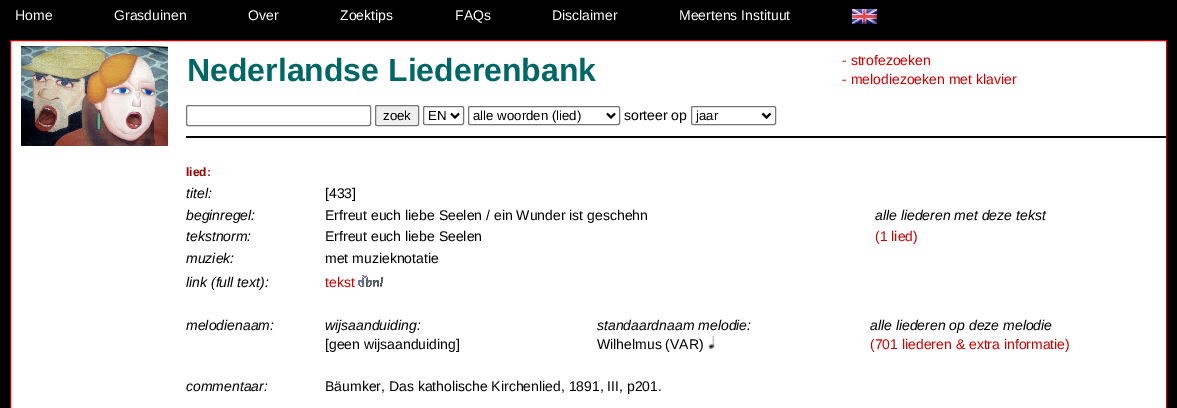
%!PS
<< /PageSize [1177 408] >> setpagedevice
/mt/moveto load def
/li/lineto load def
/cp/closepath load def
/fl/fill load def
/st/stroke load def
/gs/gsave load def
/gr/grestore load def
/lw/setlinewidth load def
/co { dup -16 bitshift 255 div exch dup -8 bitshift 255 and 255 div exch 255 and 255 div setrgbcolor } def
/fn { [ exch dup neg 0 0 3 -1 roll 0 0 ] selectfont } def
/tx { co fn moveto show } def
/bx { co rectfill } def
/rr { 5 dict begin { /r /h /w /y /x } { exch def } forall
  x r add y moveto x w add y 2 copy h add r arct x w add y h add x 1 index r arct
  x y h add x y r arct x y 2 copy exch w add exch r arct closepath end } def
/im { 5 dict begin { /h /w /y /x /name } { exch def } forall
  gsave x y translate w h scale
  w h 8 [w 0 0 h 0 0] name (r) file false 3 colorimage grestore end } def
0 408 translate 1 -1 scale
4 setmiterlimit
0 0 1177 408 16#000000 bx
(media/1.raw) 852 9 25 15 im
16#FFFFFF co
10.5 40.5 mt 1166.5 40.5 li 1166.5 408.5 li 10.5 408.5 li cp gs fl gr
16#CC0000 co
st
(media/2.raw) 21 46 147 100 im
186 136 980 2 16#000000 bx
16#767676 co
186.5 105.5 184 20 1.5 rr st
16#EFEFEF co
375.5 105.5 43 20 1.5 rr gs fl gr
16#767676 co
st
423.5 106.5 40 18 1.5 rr st
16#000000 co
2 lw
451 113.5 mt 455 117.5 li 459 113.5 li st
16#767676 co
1 lw
468.5 106.5 151 18 1.5 rr st
16#000000 co
2 lw
607 113.5 mt 611 117.5 li 615 113.5 li st
16#767676 co
1 lw
691.5 106.5 84 18 1.5 rr st
16#000000 co
2 lw
762.5 113.5 mt 766.5 117.5 li 770.5 113.5 li st
(media/3.raw) 358 275 25 12 im
(media/4.raw) 708 336 7 13 im
(Home) 15 20 /LiberationSans-Regular 14 16#FFFFFF tx
(Grasduinen) 114 20 /LiberationSans-Regular 14 16#FFFFFF tx
(Over) 248 20 /LiberationSans-Regular 14 16#FFFFFF tx
(Zoektips) 340 20 /LiberationSans-Regular 14 16#FFFFFF tx
(FAQs) 455 20 /LiberationSans-Regular 14 16#FFFFFF tx
(Disclaimer) 552 20 /LiberationSans-Regular 14 16#FFFFFF tx
(Meertens Instituut) 679 20 /LiberationSans-Regular 14 16#FFFFFF tx
(Nederlandse Liederenbank) 187 81 /LiberationSans-Bold 32 16#006666 tx
(- strofezoeken) 842 65 /LiberationSans-Regular 14 16#CC0000 tx
(- melodiezoeken met klavier) 842 84 /LiberationSans-Regular 14 16#CC0000 tx
(zoek) 383 120 /LiberationSans-Regular 13.25 16#000000 tx
(EN) 428 120 /LiberationSans-Regular 13.25 16#000000 tx
(alle woorden \(lied\)) 473 120 /LiberationSans-Regular 13.25 16#000000 tx
(sorteer op) 624 120 /LiberationSans-Regular 14 16#000000 tx
(jaar) 696 120 /LiberationSans-Regular 13.25 16#000000 tx
(lied:) 186 176 /LiberationSans-Bold 12 16#920803 tx
(titel:) 186 198 /LiberationSans-Italic 14 16#000000 tx
([433]) 325 198 /LiberationSans-Regular 14 16#000000 tx
(beginregel:) 186 220 /LiberationSans-Italic 14 16#000000 tx
(Erfreut euch liebe Seelen / ein Wunder ist geschehn) 325 220 /LiberationSans-Regular 14 16#000000 tx
(alle liederen met deze tekst) 875 220 /LiberationSans-Italic 14 16#000000 tx
(tekstnorm:) 186 241 /LiberationSans-Italic 14 16#000000 tx
(Erfreut euch liebe Seelen) 325 241 /LiberationSans-Regular 14 16#000000 tx
(\(1 lied\)) 875 241 /LiberationSans-Regular 14 16#CC0000 tx
(muziek:) 186 263 /LiberationSans-Italic 14 16#000000 tx
(met muzieknotatie) 325 263 /LiberationSans-Regular 14 16#000000 tx
(link \(full text\):) 186 287 /LiberationSans-Italic 14 16#000000 tx
(tekst) 325 287 /LiberationSans-Regular 14 16#CC0000 tx
(melodienaam:) 186 330 /LiberationSans-Italic 14 16#000000 tx
(wijsaanduiding:) 325 330 /LiberationSans-Italic 14 16#000000 tx
(standaardnaam melodie:) 597 330 /LiberationSans-Italic 14 16#000000 tx
(alle liederen op deze melodie) 870 330 /LiberationSans-Italic 14 16#000000 tx
([geen wijsaanduiding]) 325 349 /LiberationSans-Regular 14 16#000000 tx
(Wilhelmus \(VAR\)) 597 349 /LiberationSans-Regular 14 16#000000 tx
(\(701 liederen & extra informatie\)) 870 349 /LiberationSans-Regular 14 16#CC0000 tx
(commentaar:) 186 391 /LiberationSans-Italic 14 16#000000 tx
(Bäumker, Das katholische Kirchenlied, 1891, III, p201.) 325 391 /LiberationSans-Regular 14 16#000000 tx
showpage
